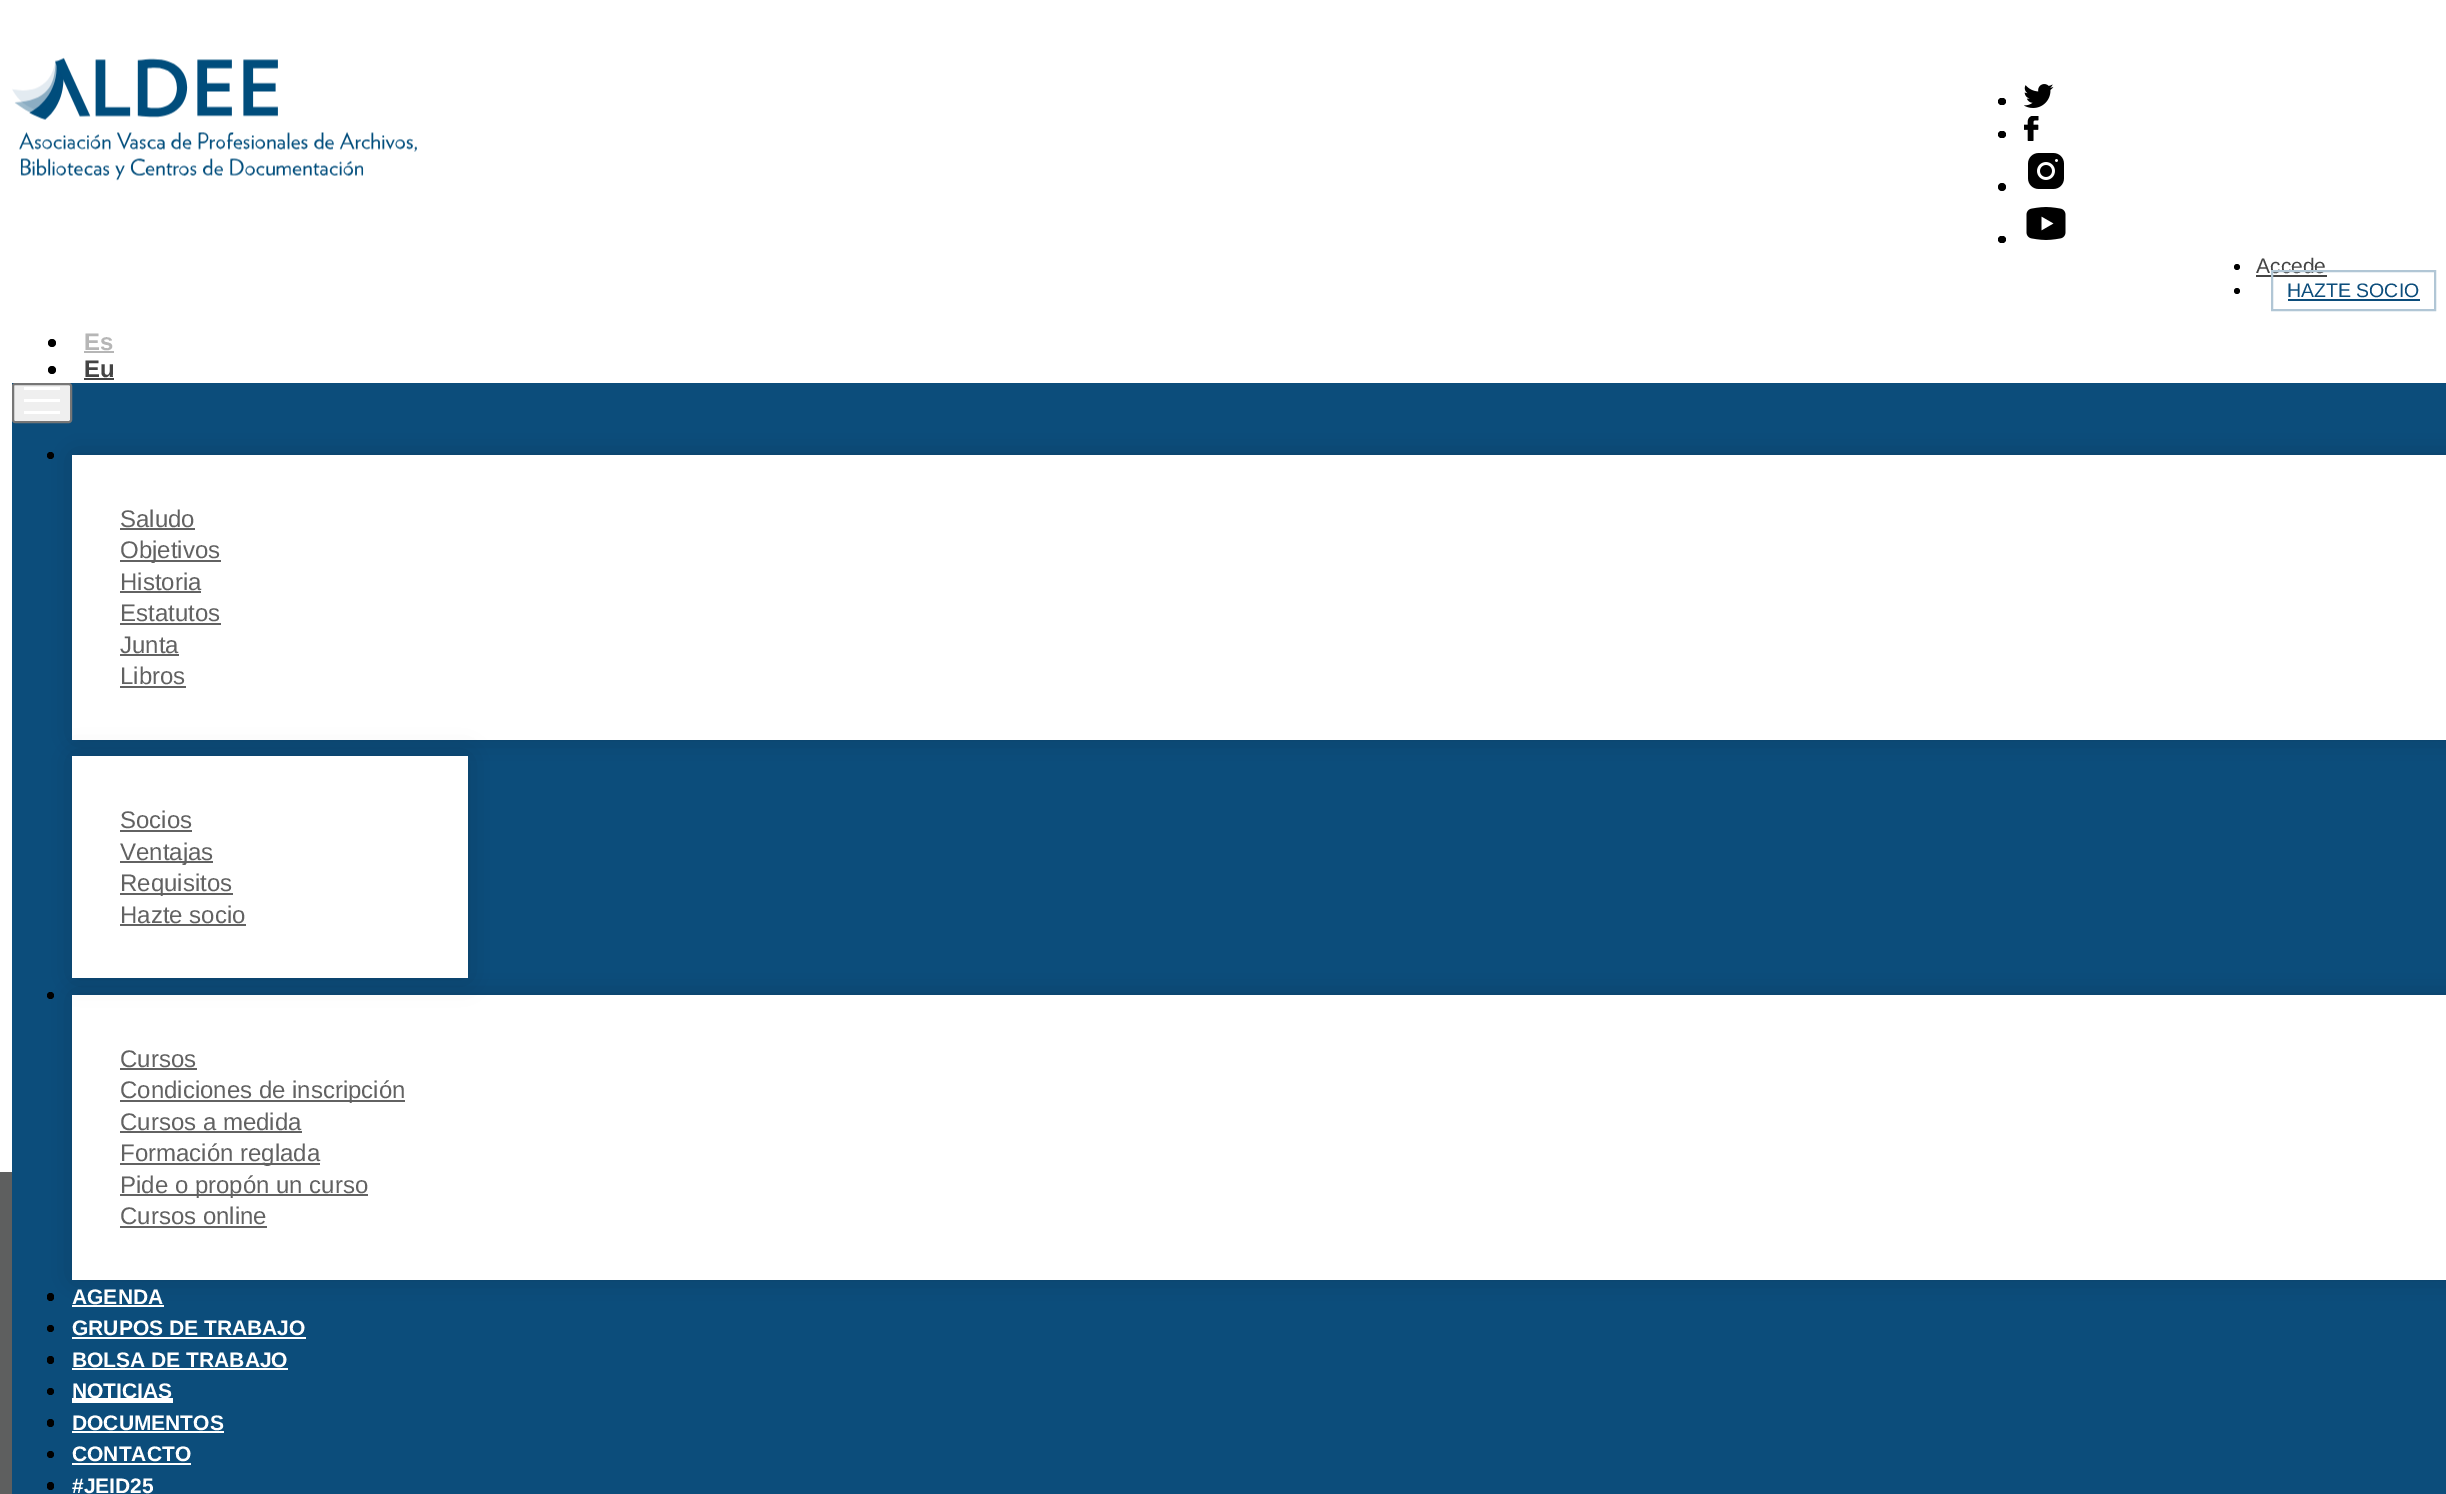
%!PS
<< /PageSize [2446 1494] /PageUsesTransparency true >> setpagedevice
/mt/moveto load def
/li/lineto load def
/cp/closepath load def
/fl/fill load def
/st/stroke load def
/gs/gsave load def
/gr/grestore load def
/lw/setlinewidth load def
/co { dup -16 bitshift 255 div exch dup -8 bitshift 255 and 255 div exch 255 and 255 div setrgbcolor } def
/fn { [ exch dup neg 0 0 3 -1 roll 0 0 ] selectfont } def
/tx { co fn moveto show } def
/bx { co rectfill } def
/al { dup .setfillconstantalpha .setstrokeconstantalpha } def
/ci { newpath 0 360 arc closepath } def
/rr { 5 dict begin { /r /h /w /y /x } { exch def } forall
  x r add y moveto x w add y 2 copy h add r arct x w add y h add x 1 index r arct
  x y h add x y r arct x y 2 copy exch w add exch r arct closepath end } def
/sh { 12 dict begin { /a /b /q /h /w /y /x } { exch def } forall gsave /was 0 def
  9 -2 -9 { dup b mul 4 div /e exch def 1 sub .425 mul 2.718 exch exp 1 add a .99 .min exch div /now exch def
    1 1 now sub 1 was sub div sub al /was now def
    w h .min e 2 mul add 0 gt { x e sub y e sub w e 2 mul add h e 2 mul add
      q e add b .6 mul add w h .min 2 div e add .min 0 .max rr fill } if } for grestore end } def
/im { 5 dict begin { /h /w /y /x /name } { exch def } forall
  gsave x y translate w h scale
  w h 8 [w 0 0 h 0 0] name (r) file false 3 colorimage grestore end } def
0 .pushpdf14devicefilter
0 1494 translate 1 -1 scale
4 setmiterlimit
0 0 2446 1494 16#FFFFFF bx
0 1172 12 322 16#5E5F5F bx
12 383 2434 1111 16#0C4D7B bx
16#000000 co
2237 267 3 ci fl
2256 275 71 2 16#444444 bx
16#000000 co
2237 291 3 ci fl
74 456 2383 282 0 13.5 .18 sh
16#EFEFEF co
13 384 58 38 2 rr gs fl gr
16#767676 co
2 lw
st
16#FFFFFF co
24 387 mt 60 387 li 60 390 li 24 390 li cp 24 399 mt 60 399 li 60 402 li 24 402 li cp 24 411 mt 60 411 li 60 414 li 24 414 li cp eofill
16#000000 co
50.5 455.5 3.5 ci fl
72 455 2374 285 16#FFFFFF bx
120 528 75 2 16#626262 bx
120 560 101 2 16#626262 bx
120 591 81 2 16#626262 bx
120 623 101 2 16#626262 bx
120 654 59 2 16#626262 bx
120 686 66 2 16#626262 bx
16#000000 co
74 996 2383 282 0 13.5 .18 sh
72 995 2374 285 16#FFFFFF bx
16#000000 co
74 758 393 219 0 13.5 .18 sh
72 756 396 222 16#FFFFFF bx
120 830 72 2 16#626262 bx
120 861 93 2 16#626262 bx
120 893 113 2 16#626262 bx
120 924 126 2 16#626262 bx
16#000000 co
50.5 995.5 3.5 ci fl
120 1068 77 2 16#626262 bx
120 1100 285 2 16#626262 bx
120 1131 182 2 16#626262 bx
120 1163 200 2 16#626262 bx
120 1194 248 2 16#626262 bx
120 1226 147 2 16#626262 bx
16#000000 co
47 1293 7 8 3.5 rr fl
72 1305 92 2 16#FFFFFF bx
16#000000 co
50.5 1328.5 3.5 ci fl
72 1337 234 2 16#FFFFFF bx
16#000000 co
47 1356 7 8 3.5 rr fl
72 1368 216 2 16#FFFFFF bx
16#000000 co
50.5 1391.5 3.5 ci fl
72 1398 101 5 16#FFFFFF bx
16#000000 co
47 1419 7 8 3.5 rr fl
72 1431 152 2 16#FFFFFF bx
16#000000 co
50.5 1454.5 3.5 ci fl
72 1463 119 2 16#FFFFFF bx
16#000000 co
47 1482 7 8 3.5 rr fl
1998 98 8 7 3.5 rr fl
(media/1.raw) 2024 84 30 24 im
1998 131 8 7 3.5 rr fl
(media/2.raw) 2024 116 15 25 im
2002 187 4 ci fl
(media/3.raw) 2028 153 36 36 im
1998 236 8 7 3.5 rr fl
(media/4.raw) 2026 207 40 33 im
(media/5.raw) 12 57 405 124 im
52 343 4 ci fl
84 351 30 2 16#B6B6B6 bx
16#000000 co
52 370 4 ci fl
84 378 30 2 16#444444 bx
(Accede) 2256 273 /LiberationSans-Regular 21 16#444444 tx
16#B1C6D5 co
2272 271 163 39 rectstroke
(HAZTE SOCIO) 2287 297 /LiberationSans-Regular 19.5 16#0C4D7B tx
2288 299 132 2 16#0C4D7B bx
(Saludo) 120 527 /LiberationSans-Regular 24 16#626262 tx
(Objetivos) 120 558 /LiberationSans-Regular 24 16#626262 tx
(Historia) 120 590 /LiberationSans-Regular 24 16#626262 tx
(Estatutos) 120 621 /LiberationSans-Regular 24 16#626262 tx
(Junta) 120 653 /LiberationSans-Regular 24 16#626262 tx
(Libros) 120 684 /LiberationSans-Regular 24 16#626262 tx
(Socios) 120 828 /LiberationSans-Regular 24 16#626262 tx
(Ventajas) 120 860 /LiberationSans-Regular 24 16#626262 tx
(Requisitos) 120 891 /LiberationSans-Regular 24 16#626262 tx
(Hazte socio) 120 923 /LiberationSans-Regular 24 16#626262 tx
(Cursos) 120 1067 /LiberationSans-Regular 24 16#626262 tx
(Condiciones de inscripción) 120 1098 /LiberationSans-Regular 24 16#626262 tx
(Cursos a medida) 120 1130 /LiberationSans-Regular 24 16#626262 tx
(Formación reglada) 120 1161 /LiberationSans-Regular 24 16#626262 tx
(Pide o propón un curso) 120 1193 /LiberationSans-Regular 24 16#626262 tx
(Cursos online) 120 1224 /LiberationSans-Regular 24 16#626262 tx
(AGENDA) 72 1304 /LiberationSans-Bold 21 16#FFFFFF tx
(GRUPOS DE TRABAJO) 72 1335 /LiberationSans-Bold 21 16#FFFFFF tx
(BOLSA DE TRABAJO) 72 1367 /LiberationSans-Bold 21 16#FFFFFF tx
(NOTICIAS) 72 1398 /LiberationSans-Bold 21 16#FFFFFF tx
(DOCUMENTOS) 72 1430 /LiberationSans-Bold 21 16#FFFFFF tx
(CONTACTO) 72 1461 /LiberationSans-Bold 21 16#FFFFFF tx
(#JEID25) 72 1493 /LiberationSans-Bold 21 16#FFFFFF tx
(Es) 84 350 /LiberationSans-Bold 24 16#B6B6B6 tx
(Eu) 84 377 /LiberationSans-Bold 24 16#444444 tx
.poppdf14devicefilter showpage
